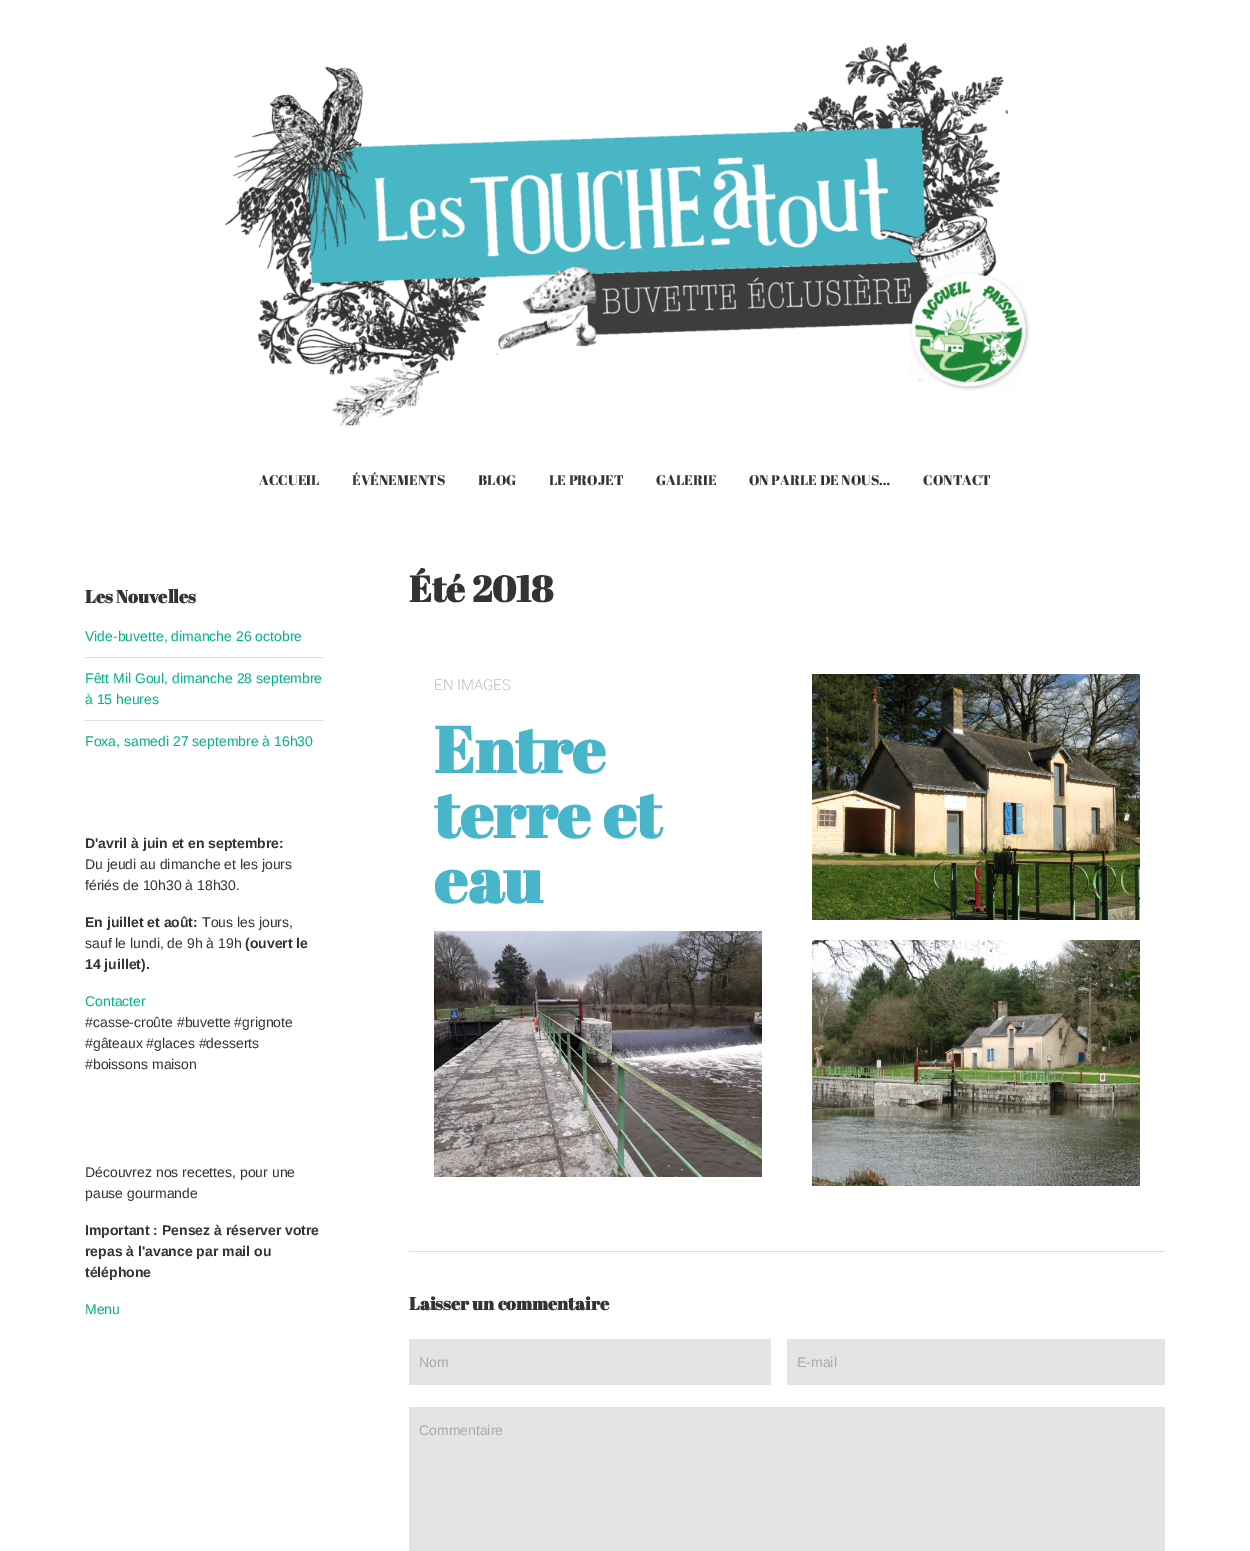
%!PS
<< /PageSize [1250 1551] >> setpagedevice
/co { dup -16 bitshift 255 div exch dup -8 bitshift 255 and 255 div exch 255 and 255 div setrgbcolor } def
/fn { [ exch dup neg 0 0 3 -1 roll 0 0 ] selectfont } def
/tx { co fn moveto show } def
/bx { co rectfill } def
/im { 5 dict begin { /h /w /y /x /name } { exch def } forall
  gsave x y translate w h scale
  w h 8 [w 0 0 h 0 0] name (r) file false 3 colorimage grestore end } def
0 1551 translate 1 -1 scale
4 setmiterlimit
0 0 1250 1551 16#FFFFFF bx
(media/1.raw) 224 42 806 384 im
85 657 238 1 16#DDDDDD bx
85 720 238 1 16#DDDDDD bx
(media/2.raw) 434 931 328 246 im
(media/3.raw) 812 674 328 246 im
(media/4.raw) 812 940 328 246 im
409 1251 756 1 16#DDDDDD bx
409 1339 362 46 16#E4E4E4 bx
787 1339 378 46 16#E4E4E4 bx
409 1407 756 144 16#E4E4E4 bx
(ACCUEIL) 259 485 /AbrilFatface-Regular 14 16#333333 tx
(ÉVÉNEMENTS) 352 485 /AbrilFatface-Regular 14 16#333333 tx
(BLOG) 478 485 /AbrilFatface-Regular 14 16#333333 tx
(LE PROJET) 549 485 /AbrilFatface-Regular 14 16#333333 tx
(GALERIE) 656 485 /AbrilFatface-Regular 14 16#333333 tx
(ON PARLE DE NOUS…) 749 485 /AbrilFatface-Regular 14 16#333333 tx
(CONTACT) 923 485 /AbrilFatface-Regular 14 16#333333 tx
(Les Nouvelles) 85 603 /AbrilFatface-Bold 18 16#333333 tx
(Vide-buvette, dimanche 26 octobre) 85 641 /LiberationSans-Regular 14 16#00B285 tx
(Fêtt Mil Goul, dimanche 28 septembre) 85 683 /LiberationSans-Regular 14 16#00B285 tx
(à 15 heures) 85 704 /LiberationSans-Regular 14 16#00B285 tx
(Foxa, samedi 27 septembre à 16h30) 85 746 /LiberationSans-Regular 14 16#00B285 tx
(D'avril à juin et en septembre:) 85 848 /LiberationSans-Bold 14 16#333333 tx
(Du jeudi au dimanche et les jours) 85 869 /LiberationSans-Regular 14 16#333333 tx
(fériés de 10h30 à 18h30.) 85 890 /LiberationSans-Regular 14 16#333333 tx
(En juillet et août:) 85 927 /LiberationSans-Bold 14 16#333333 tx
(Tous les jours,) 202 927 /LiberationSans-Regular 14 16#333333 tx
(sauf le lundi, de 9h à 19h) 85 948 /LiberationSans-Regular 14 16#333333 tx
(\(ouvert le) 245 948 /LiberationSans-Bold 14 16#333333 tx
(14 juillet\).) 85 969 /LiberationSans-Bold 14 16#333333 tx
(Contacter) 85 1006 /LiberationSans-Regular 14 16#00B285 tx
(#casse-croûte #buvette #grignote) 85 1027 /LiberationSans-Regular 14 16#333333 tx
(#gâteaux #glaces #desserts) 85 1048 /LiberationSans-Regular 14 16#333333 tx
(#boissons maison) 85 1069 /LiberationSans-Regular 14 16#333333 tx
(Découvrez nos recettes, pour une) 85 1177 /LiberationSans-Regular 14 16#333333 tx
(pause gourmande) 85 1198 /LiberationSans-Regular 14 16#333333 tx
(Important : Pensez à réserver votre) 85 1235 /LiberationSans-Bold 14 16#333333 tx
(repas à l'avance par mail ou) 85 1256 /LiberationSans-Bold 14 16#333333 tx
(téléphone) 85 1277 /LiberationSans-Bold 14 16#333333 tx
(Menu) 85 1314 /LiberationSans-Regular 14 16#00B285 tx
(Été 2018) 409 602 /AbrilFatface-Bold 36.5 16#333333 tx
(EN IMAGES) 434 690 /Roboto-Light 15 16#BFBFBF tx
(Entre) 434 773 /AbrilFatface-Bold 65 16#49B5CA tx
(terre et) 434 838 /AbrilFatface-Bold 65 16#49B5CA tx
(eau) 434 903 /AbrilFatface-Bold 65 16#49B5CA tx
(Laisser un commentaire) 409 1310 /AbrilFatface-Bold 18 16#333333 tx
(Nom) 419 1367 /LiberationSans-Regular 14 16#AAAAAA tx
(E-mail) 797 1367 /LiberationSans-Regular 14 16#AAAAAA tx
(Commentaire) 419 1435 /LiberationSans-Regular 14 16#AAAAAA tx
showpage
